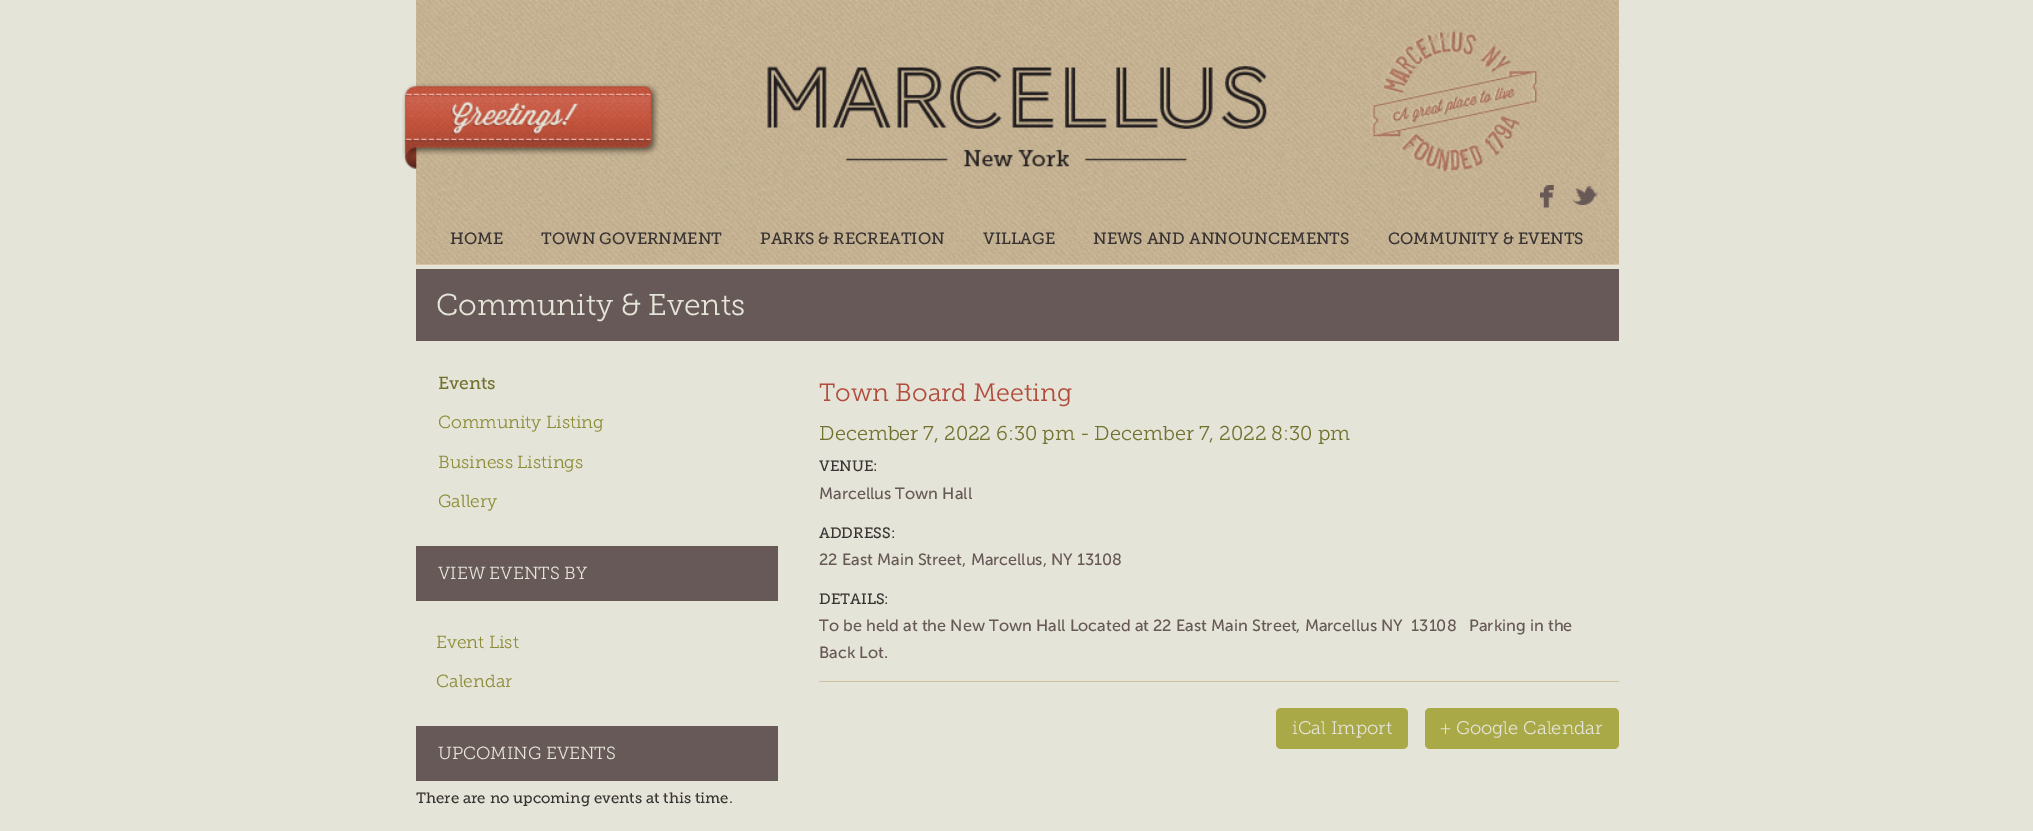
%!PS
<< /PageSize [2033 831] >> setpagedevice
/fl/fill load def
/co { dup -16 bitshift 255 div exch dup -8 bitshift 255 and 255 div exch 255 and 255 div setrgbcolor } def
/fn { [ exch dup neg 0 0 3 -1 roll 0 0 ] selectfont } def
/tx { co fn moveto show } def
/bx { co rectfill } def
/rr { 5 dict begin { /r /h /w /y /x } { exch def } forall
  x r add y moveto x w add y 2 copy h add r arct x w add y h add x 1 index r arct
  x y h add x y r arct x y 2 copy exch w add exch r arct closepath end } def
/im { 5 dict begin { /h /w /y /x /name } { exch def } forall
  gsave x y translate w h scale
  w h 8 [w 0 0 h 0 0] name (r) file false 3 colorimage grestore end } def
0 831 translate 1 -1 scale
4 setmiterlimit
0 0 2033 831 16#E5E4D8 bx
(media/1.raw) 416 0 1203 264 im
(media/2.raw) 402 83 257 86 im
(media/3.raw) 767 66 500 101 im
(media/4.raw) 1370 31 168 141 im
(media/5.raw) 1540 185 14 23 im
(media/6.raw) 1572 186 26 19 im
416 264 1203 1 16#D8C4A1 bx
416 269 1203 72 16#675957 bx
416 546 362 55 16#675957 bx
416 726 362 55 16#675957 bx
819 681 800 1 16#D2BF9D bx
16#A9A948 co
1276 708 132 41 5 rr fl
1425 708 194 41 5 rr fl
(HOME) 450 244 /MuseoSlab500-Regular 16.25 16#393433 tx
(TOWN GOVERNMENT) 541 244 /MuseoSlab500-Regular 16.25 16#393433 tx
(PARKS & RECREATION) 760 244 /MuseoSlab500-Regular 16.25 16#393433 tx
(VILLAGE) 983 244 /MuseoSlab500-Regular 16.25 16#393433 tx
(NEWS AND ANNOUNCEMENTS) 1093 244 /MuseoSlab500-Regular 16.25 16#393433 tx
(COMMUNITY & EVENTS) 1388 244 /MuseoSlab500-Regular 16.25 16#393433 tx
(Community & Events) 436 315 /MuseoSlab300-Light 30 16#E5E4D8 tx
(Events) 438 389 /MuseoSlab500-Regular 17.5 16#72722F tx
(Community Listing) 438 428 /MuseoSlab300-Light 17.5 16#8D8D39 tx
(Business Listings) 438 468 /MuseoSlab300-Light 17.5 16#8D8D39 tx
(Gallery) 438 507 /MuseoSlab300-Light 17.5 16#8D8D39 tx
(VIEW EVENTS BY) 438 579 /MuseoSlab300-Light 17.5 16#E5E4D8 tx
(Event List) 436 648 /MuseoSlab300-Light 17.5 16#8D8D39 tx
(Calendar) 436 687 /MuseoSlab300-Light 17.5 16#8D8D39 tx
(UPCOMING EVENTS) 438 759 /MuseoSlab300-Light 17.5 16#E5E4D8 tx
(There are no upcoming events at this time.) 416 803 /MuseoSlab500-Regular 15 16#393433 tx
(Town Board Meeting) 819 401 /MuseoSlab300-Light 25 16#B14C3C tx
(December 7, 2022 6:30 pm - December 7, 2022 8:30 pm) 819 440 /MuseoSlab300-Light 20 16#72722F tx
(VENUE:) 819 471 /MuseoSlab500-Regular 15 16#393433 tx
(Marcellus Town Hall) 819 499 /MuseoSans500-Regular 16.25 16#675957 tx
(ADDRESS:) 819 538 /MuseoSlab500-Regular 15 16#393433 tx
(22 East Main Street, Marcellus, NY 13108) 819 565 /MuseoSans500-Regular 16.25 16#675957 tx
(DETAILS:) 819 604 /MuseoSlab500-Regular 15 16#393433 tx
(To be held at the New Town Hall Located at 22 East Main Street, Marcellus NY  13108) 819 631 /MuseoSans500-Regular 16.25 16#675957 tx
(Parking in the) 1469 631 /MuseoSans500-Regular 16.25 16#675957 tx
(Back Lot.) 819 658 /MuseoSans500-Regular 16.25 16#675957 tx
(iCal Import) 1292 734 /MuseoSlab300-Light 18.25 16#E5E4D8 tx
(+ Google Calendar) 1440 734 /MuseoSlab300-Light 18.25 16#E5E4D8 tx
showpage
